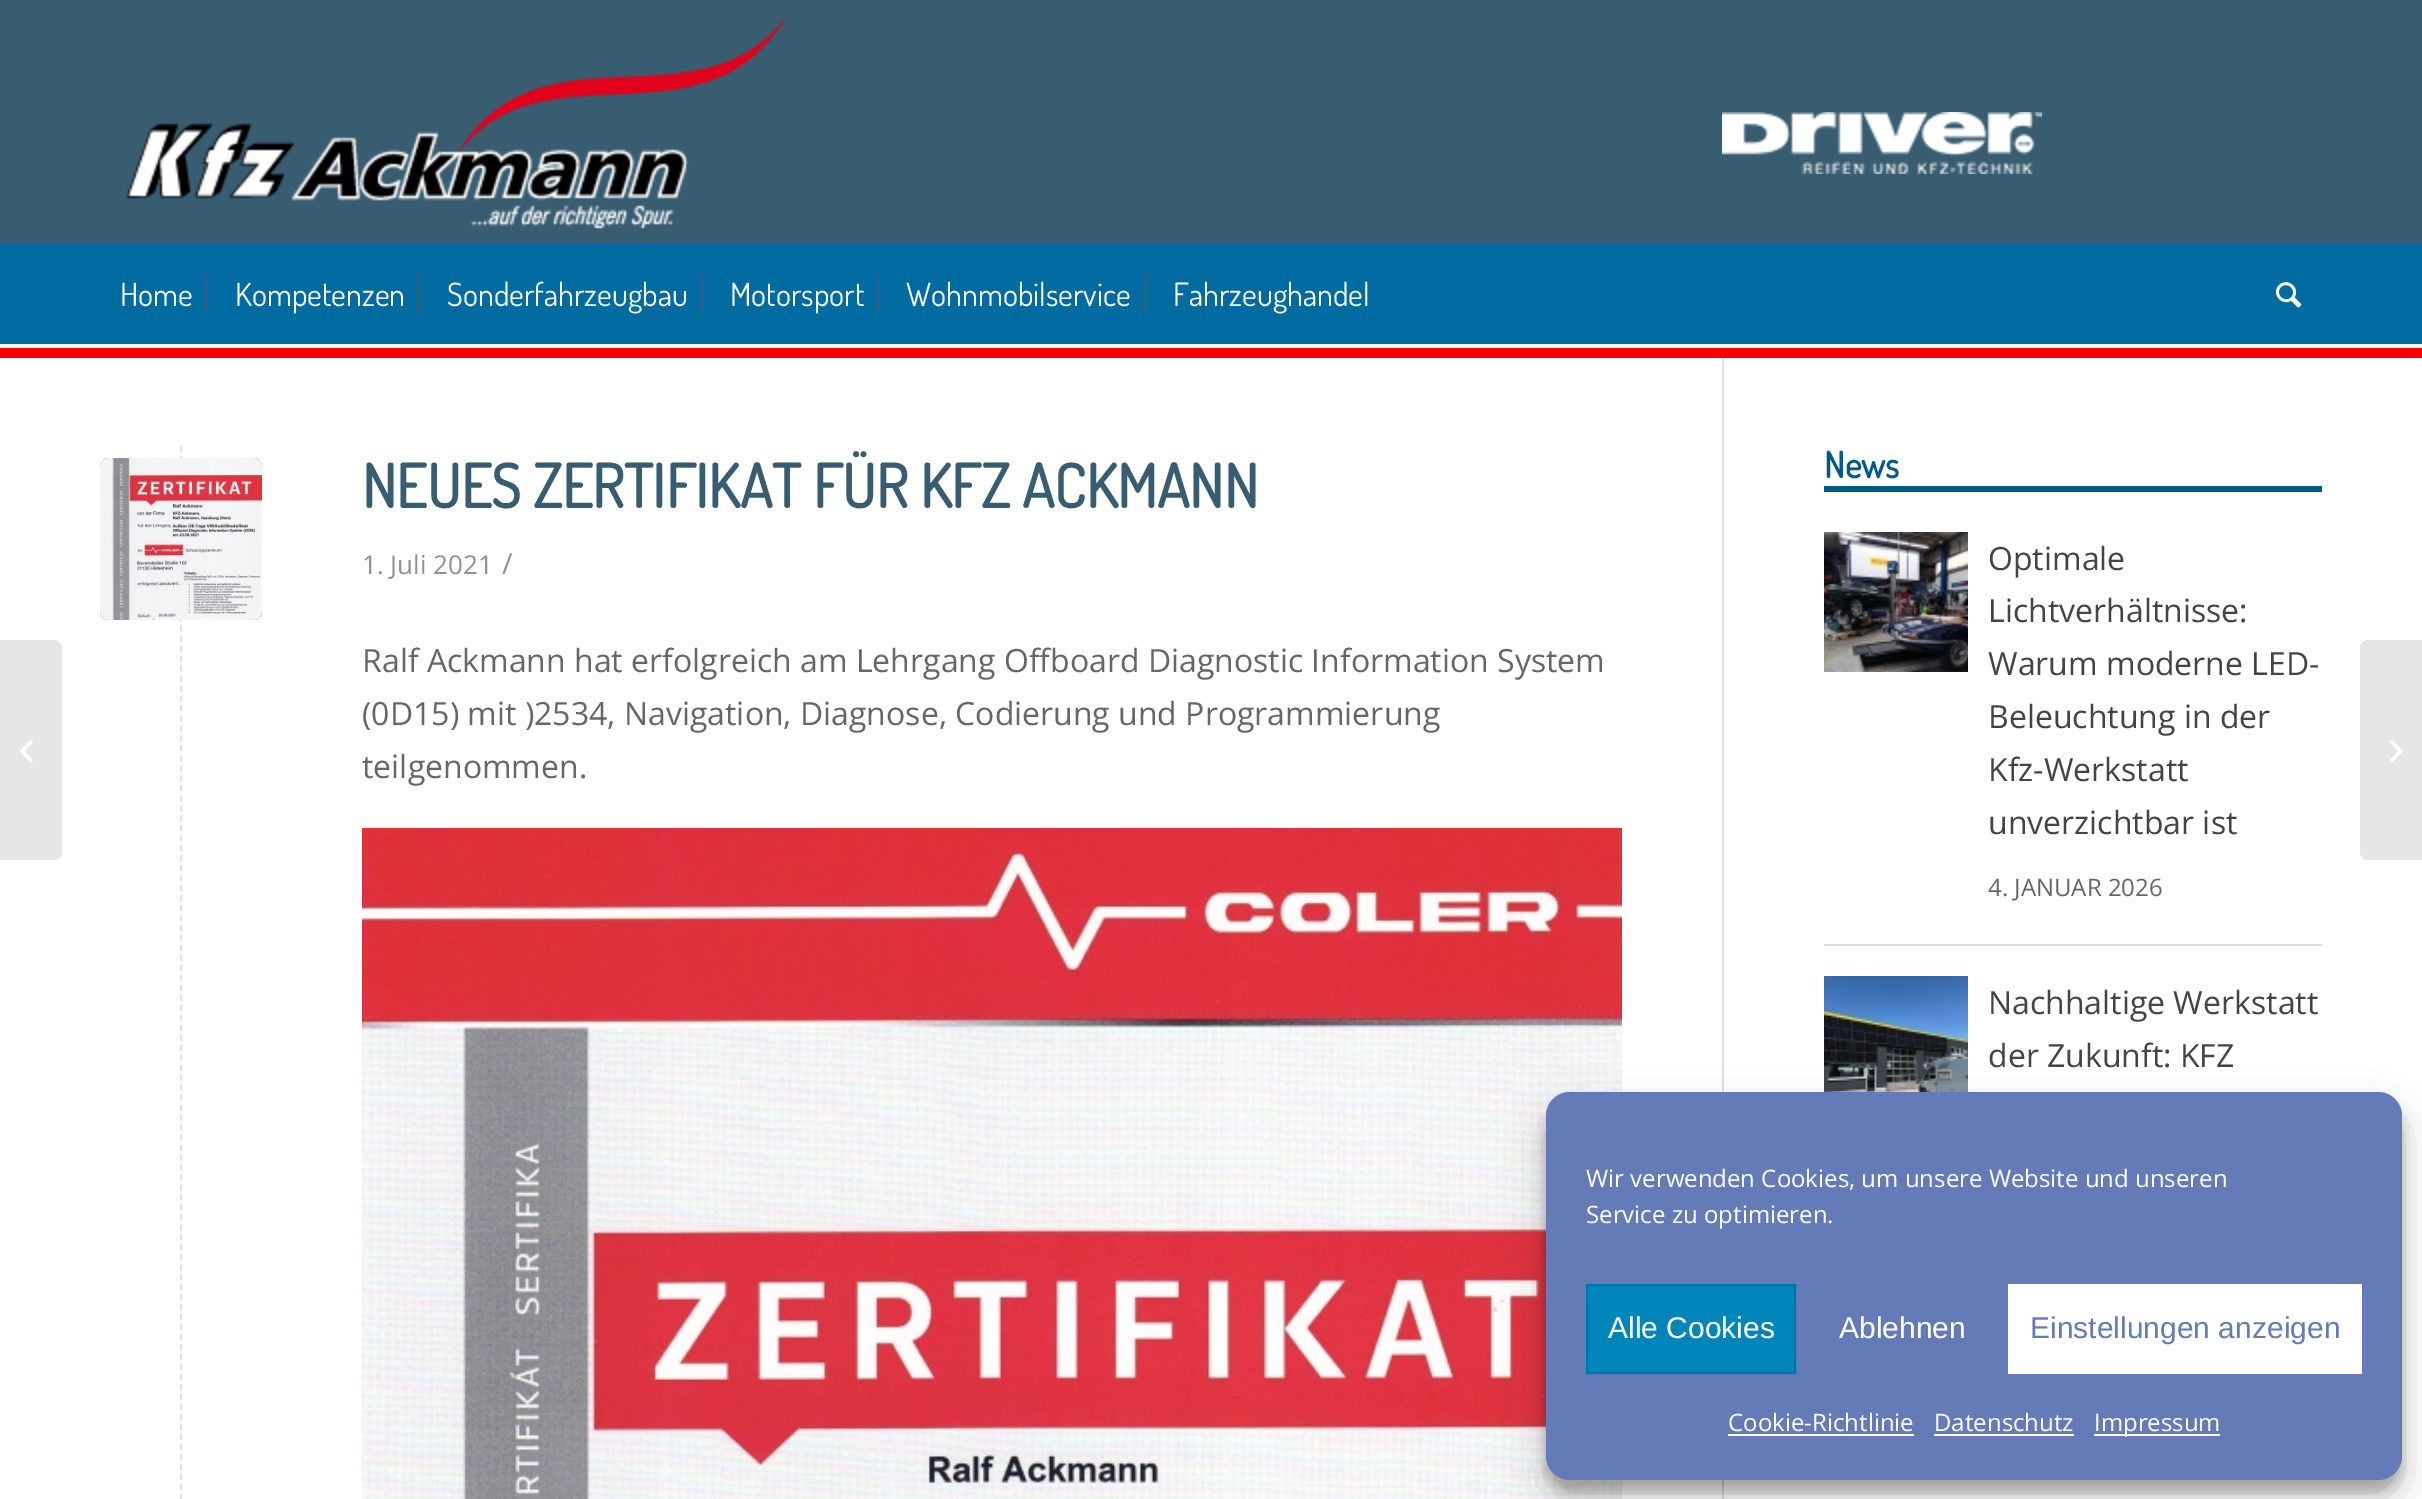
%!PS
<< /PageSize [2422 1499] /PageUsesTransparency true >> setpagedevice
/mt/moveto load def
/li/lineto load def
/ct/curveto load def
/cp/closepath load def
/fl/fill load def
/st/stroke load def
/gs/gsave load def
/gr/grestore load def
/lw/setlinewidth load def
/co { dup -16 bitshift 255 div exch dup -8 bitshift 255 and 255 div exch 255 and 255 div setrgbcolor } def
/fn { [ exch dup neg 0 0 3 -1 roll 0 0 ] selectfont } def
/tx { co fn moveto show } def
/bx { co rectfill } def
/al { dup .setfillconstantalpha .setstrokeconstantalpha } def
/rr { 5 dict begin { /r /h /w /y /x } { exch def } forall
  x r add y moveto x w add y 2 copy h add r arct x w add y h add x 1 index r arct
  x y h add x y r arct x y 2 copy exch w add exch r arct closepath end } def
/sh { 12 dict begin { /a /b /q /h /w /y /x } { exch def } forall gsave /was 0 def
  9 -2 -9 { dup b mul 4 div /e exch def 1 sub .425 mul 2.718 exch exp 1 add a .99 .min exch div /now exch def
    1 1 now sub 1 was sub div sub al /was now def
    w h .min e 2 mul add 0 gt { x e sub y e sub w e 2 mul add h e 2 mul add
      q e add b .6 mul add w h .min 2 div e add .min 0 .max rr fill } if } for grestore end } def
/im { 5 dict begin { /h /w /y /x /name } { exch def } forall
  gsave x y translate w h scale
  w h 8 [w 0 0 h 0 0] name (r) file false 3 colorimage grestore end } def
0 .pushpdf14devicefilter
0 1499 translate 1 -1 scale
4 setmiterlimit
0 0 2422 1499 16#FFFFFF bx
0 0 2422 244 16#385C70 bx
(media/1.raw) 125 17 662 212 im
(media/2.raw) 1722 112 320 62 im
0 244 2422 100 16#006BA1 bx
206 274 2 40 16#385C70 bx
418 274 2 40 16#385C70 bx
702 274 2 40 16#385C70 bx
878 274 2 40 16#385C70 bx
1144 274 2 40 16#385C70 bx
(media/3.raw) 2276 282 26 26 im
0 348 2422 10 16#FF0000 bx
16#E6E6E6 co
0 640 mt 54 640 li 58.5 640 62 643.5 62 648 ct 62 852 li 62 856.5 58.5 860 54 860 ct 0 860 li cp fl
(media/4.raw) 20 740 13 22 im
1722 358 2 1141 16#E1E1E1 bx
2 lw
[6 3.98] 0 setdash
181 446 mt 181 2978 li st
(media/5.raw) 362 828 1260 671 im
16#919191 co
100 458 162 162 8 rr fl
(media/6.raw) 100 458 162 162 im
1824 486 498 6 16#005A87 bx
1824 944 498 2 16#DDDDDD bx
(media/7.raw) 1824 532 144 140 im
(media/8.raw) 1824 976 144 116 im
16#E6E6E6 co
2368 640 mt 2422 640 li 2422 860 li 2368 860 li 2363.5 860 2360 856.5 2360 852 ct 2360 648 li 2360 643.5 2363.5 640 2368 640 ct cp fl
(media/9.raw) 2390 740 13 23 im
16#000000 co
1546 1104 856 388 24 6 .23 sh
1546 1112 856 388 24 20 .19 sh
16#657BB8 co
1546 1092 856 388 24 rr fl
16#0085BA co
1587 1285 mt 1795 1285 li 1795 1373 li 1587 1373 li cp gs fl gr
16#0073AA co
[] 0 setdash
st
2008 1284 354 90 16#FFFFFF bx
1728 1434 186 2 16#FFFFFF bx
1934 1434 140 2 16#FFFFFF bx
2094 1434 126 2 16#FFFFFF bx
(Home) 120 306 /Dosis-Regular 32 16#FFFFFF tx
(Kompetenzen) 235 306 /Dosis-Regular 32 16#FFFFFF tx
(Sonderfahrzeugbau) 447 306 /Dosis-Regular 32 16#FFFFFF tx
(Motorsport) 730 306 /Dosis-Regular 32 16#FFFFFF tx
(Wohnmobilservice) 906 306 /Dosis-Regular 32 16#FFFFFF tx
(Fahrzeughandel) 1173 306 /Dosis-Regular 32 16#FFFFFF tx
(NEUES ZERTIFIKAT FÜR KFZ ACKMANN) 362 508 /Dosis-Bold 60 16#385C70 tx
(1. Juli 2021) 362 574 /OpenSans-Regular 26 16#919191 tx
(/) 502 574 /OpenSans-Regular 29 16#919191 tx
(Ralf Ackmann hat erfolgreich am Lehrgang Offboard Diagnostic Information System) 362 672 /OpenSans-Regular 32 16#666666 tx
(\(0D15\) mit \)2534, Navigation, Diagnose, Codierung und Programmierung) 362 725 /OpenSans-Regular 32 16#666666 tx
(teilgenommen.) 362 778 /OpenSans-Regular 32 16#666666 tx
(News) 1824 478 /Dosis-Bold 36 16#005A87 tx
(Optimale) 1988 570 /OpenSans-Regular 32 16#444444 tx
(Lichtverhältnisse:) 1988 622 /OpenSans-Regular 32 16#444444 tx
(Warum moderne LED-) 1988 675 /OpenSans-Regular 32 16#444444 tx
(Beleuchtung in der) 1988 728 /OpenSans-Regular 32 16#444444 tx
(Kfz-Werkstatt) 1988 781 /OpenSans-Regular 32 16#444444 tx
(unverzichtbar ist) 1988 834 /OpenSans-Regular 32 16#444444 tx
(4. JANUAR 2026) 1988 896 /OpenSans-Regular 24 16#666666 tx
(Nachhaltige Werkstatt) 1988 1014 /OpenSans-Regular 32 16#444444 tx
(der Zukunft: KFZ) 1988 1067 /OpenSans-Regular 32 16#444444 tx
(Wir verwenden Cookies, um unsere Website und unseren) 1586 1187 /OpenSans-Regular 24 16#FFFFFF tx
(Service zu optimieren.) 1586 1223 /OpenSans-Regular 24 16#FFFFFF tx
(Alle Cookies) 1608 1338 /LiberationSans-Regular 30 16#FFFFFF tx
(Ablehnen) 1839 1338 /LiberationSans-Regular 30 16#FFFFFF tx
(Einstellungen anzeigen) 2030 1338 /LiberationSans-Regular 30 16#657BB8 tx
(Cookie-Richtlinie) 1728 1431 /OpenSans-Regular 24 16#FFFFFF tx
(Datenschutz) 1934 1431 /OpenSans-Regular 24 16#FFFFFF tx
(Impressum) 2094 1431 /OpenSans-Regular 24 16#FFFFFF tx
.poppdf14devicefilter showpage
